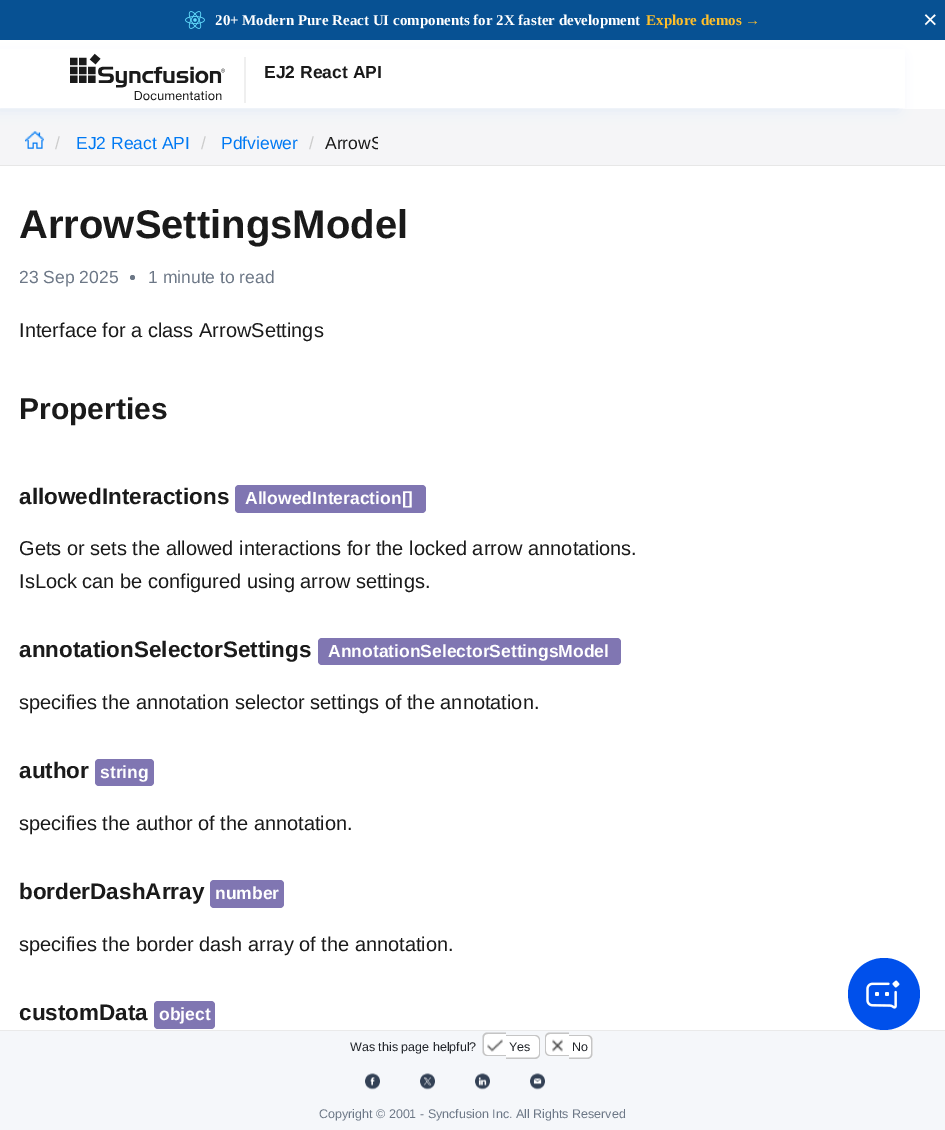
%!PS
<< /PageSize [945 1130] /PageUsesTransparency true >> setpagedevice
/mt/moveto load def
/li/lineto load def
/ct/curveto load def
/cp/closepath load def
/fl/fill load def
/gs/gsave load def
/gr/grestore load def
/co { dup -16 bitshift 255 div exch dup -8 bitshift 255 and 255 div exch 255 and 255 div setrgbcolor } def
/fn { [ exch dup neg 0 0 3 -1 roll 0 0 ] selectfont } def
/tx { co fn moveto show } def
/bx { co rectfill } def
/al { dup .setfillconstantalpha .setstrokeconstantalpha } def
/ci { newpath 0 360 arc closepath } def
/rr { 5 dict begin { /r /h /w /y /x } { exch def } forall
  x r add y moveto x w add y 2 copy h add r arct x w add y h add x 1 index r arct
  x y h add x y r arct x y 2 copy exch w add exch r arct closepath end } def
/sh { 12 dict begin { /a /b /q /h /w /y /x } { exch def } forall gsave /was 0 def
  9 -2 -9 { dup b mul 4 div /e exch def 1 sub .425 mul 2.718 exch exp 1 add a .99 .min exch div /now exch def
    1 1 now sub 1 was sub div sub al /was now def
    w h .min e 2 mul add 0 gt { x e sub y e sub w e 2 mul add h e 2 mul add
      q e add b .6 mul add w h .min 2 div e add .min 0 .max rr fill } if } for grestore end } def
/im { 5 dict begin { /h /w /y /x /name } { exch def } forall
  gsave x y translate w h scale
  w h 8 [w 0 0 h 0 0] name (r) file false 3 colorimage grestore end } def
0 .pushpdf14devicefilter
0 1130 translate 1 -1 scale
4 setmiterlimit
0 0 945 1130 16#FFFFFF bx
0 109 945 56 16#F5F5F7 bx
(media/3.raw) 25 131 19 18 im
16#E2EAF5 co
-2 58 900 52 0 7 1 sh
0 0 945 40 16#075193 bx
(media/1.raw) 185 11 20 18 im
0 49 905 59 16#FFFFFF bx
(media/2.raw) 70 53 176 50 im
0 165 945 1 16#E7E7E7 bx
16#6C7786 co
132.5 277.5 2.5 ci fl
16#8076B2 co
235 485 191 28 4 rr fl
318 638 303 27 4 rr fl
95 759 59 27 4 rr fl
210 880 74 28 4 rr fl
154 1001 61 28 4 rr fl
16#0050EB co
884 994 36 ci fl
(media/4.raw) 866 980 34 29 im
0 1031 945 99 16#F5F7FA bx
0 1030 945 1 16#EAEAEA bx
16#FFFFFF co
488 1033 mt 506 1033 li 506 1056 li 488 1056 li 485 1056 483 1054 483 1051 ct 483 1038 li 483 1035 485 1033 488 1033 ct cp fl
16#C5C5C5 co
487.5 1032.5 mt 506 1032.5 li 506 1056 li 487.5 1056 li 484.5 1056 482.5 1054 482.5 1051 ct 482.5 1037.5 li 482.5 1034.5 484.5 1032.5 487.5 1032.5 ct cp 487.5 1034 mt 506 1034 li 506 1055 li 487.5 1055 li 485.5 1055 484 1053.5 484 1051 ct 484 1037.5 li 484 1035.5 485.5 1034 487.5 1034 ct cp eofill
16#FFFFFF co
506 1035 mt 535 1035 li 538 1035 540 1037 540 1040 ct 540 1054 li 540 1057 538 1059 535 1059 ct 506 1059 li cp fl
16#C5C5C5 co
506 1035 mt 535 1035 li 538 1035 540 1037 540 1040 ct 540 1054 li 540 1056.5 538 1059 535 1059 ct 506 1059 li cp 506 1036 mt 535 1036 li 537 1036 539 1038 539 1040 ct 539 1054 li 539 1056 537 1057.5 535 1057.5 ct 506 1057.5 li cp eofill
(media/5.raw) 487 1039 16 13 im
16#FFFFFF co
550 1033 mt 569 1033 li 569 1056 li 550 1056 li 547 1056 545 1054 545 1051 ct 545 1038 li 545 1035 547 1033 550 1033 ct cp fl
16#C5C5C5 co
550 1032.5 mt 569 1032.5 li 569 1056 li 550 1056 li 547 1056 545 1054 545 1051 ct 545 1037.5 li 545 1034.5 547 1032.5 550 1032.5 ct cp 550 1034 mt 569 1034 li 569 1055 li 550 1055 li 548 1055 546 1053.5 546 1051 ct 546 1037.5 li 546 1035.5 548 1034 550 1034 ct cp eofill
16#FFFFFF co
569 1035 mt 588 1035 li 591 1035 593 1037 593 1040 ct 593 1054 li 593 1057 591 1059 588 1059 ct 569 1059 li cp fl
16#C5C5C5 co
569 1035 mt 587.5 1035 li 590.5 1035 592.5 1037 592.5 1040 ct 592.5 1054 li 592.5 1056.5 590.5 1059 587.5 1059 ct 569 1059 li cp 569 1036 mt 587.5 1036 li 589.5 1036 591 1038 591 1040 ct 591 1054 li 591 1056 589.5 1057.5 587.5 1057.5 ct 569 1057.5 li cp eofill
(media/6.raw) 552 1039 11 13 im
(media/7.raw) 365 1073 15 17 im
(media/8.raw) 420 1073 15 17 im
(media/9.raw) 475 1073 15 17 im
(media/10.raw) 530 1073 15 17 im
(20+ Modern Pure React UI components for 2X faster development) 215 25 /LiberationSerif-Bold 15 16#FFFFFF tx
(Explore demos →) 646 25 /LiberationSerif-Bold 15 16#FFBF2A tx
(×) 923 28 /LiberationSans-Regular 25 16#FFFFFF tx
(EJ2 React API) 264 78 /LiberationSans-Bold 17.5 16#1A1A1A tx
(/) 55 149 /LiberationSans-Regular 17.5 16#CCCCCC tx
(EJ2 React API) 76 149 /LiberationSans-Regular 17.5 16#0079F3 tx
(/) 201 149 /LiberationSans-Regular 17.5 16#CCCCCC tx
(Pdfviewer) 221 149 /LiberationSans-Regular 17.5 16#0079F3 tx
(/) 309 149 /LiberationSans-Regular 17.5 16#CCCCCC tx
gs
0 109 378 51 rectclip
(ArrowS) 325 149 /LiberationSans-Regular 17.5 16#1A1A1A tx
gr
(ArrowSettingsModel) 19 238 /LiberationSans-Bold 40 16#1A1A1A tx
(23 Sep 2025) 19 283 /LiberationSans-Regular 17.5 16#6C7786 tx
(1 minute to read) 148 283 /LiberationSans-Regular 17.5 16#6C7786 tx
(Interface for a class ArrowSettings) 19 337 /LiberationSans-Regular 20 16#1A1A1A tx
(Properties) 19 419 /LiberationSans-Bold 30 16#1A1A1A tx
(allowedInteractions) 19 504 /LiberationSans-Bold 22.5 16#1A1A1A tx
(AllowedInteraction[]) 245 504 /LiberationSans-Bold 17.5 16#FFFFFF tx
(Gets or sets the allowed interactions for the locked arrow annotations.) 19 555 /LiberationSans-Regular 20 16#1A1A1A tx
(IsLock can be configured using arrow settings.) 19 588 /LiberationSans-Regular 20 16#1A1A1A tx
(annotationSelectorSettings) 19 657 /LiberationSans-Bold 22.5 16#1A1A1A tx
(AnnotationSelectorSettingsModel) 328 657 /LiberationSans-Bold 17.5 16#FFFFFF tx
(specifies the annotation selector settings of the annotation.) 19 709 /LiberationSans-Regular 20 16#1A1A1A tx
(author) 19 778 /LiberationSans-Bold 22.5 16#1A1A1A tx
(string) 100 778 /LiberationSans-Bold 17.5 16#FFFFFF tx
(specifies the author of the annotation.) 19 830 /LiberationSans-Regular 20 16#1A1A1A tx
(borderDashArray) 19 899 /LiberationSans-Bold 22.5 16#1A1A1A tx
(number) 215 899 /LiberationSans-Bold 17.5 16#FFFFFF tx
(specifies the border dash array of the annotation.) 19 951 /LiberationSans-Regular 20 16#1A1A1A tx
(customData) 19 1020 /LiberationSans-Bold 22.5 16#1A1A1A tx
(object) 159 1020 /LiberationSans-Bold 17.5 16#FFFFFF tx
(Was this page helpful?) 350 1051 /LiberationSans-Regular 12.5 16#22252A tx
(Yes) 509 1051 /LiberationSans-Regular 12.5 16#22252A tx
(No) 572 1051 /LiberationSans-Regular 12.5 16#22252A tx
(Copyright © 2001 - Syncfusion Inc. All Rights Reserved) 319 1118 /LiberationSans-Regular 12.5 16#6C7786 tx
.poppdf14devicefilter showpage
